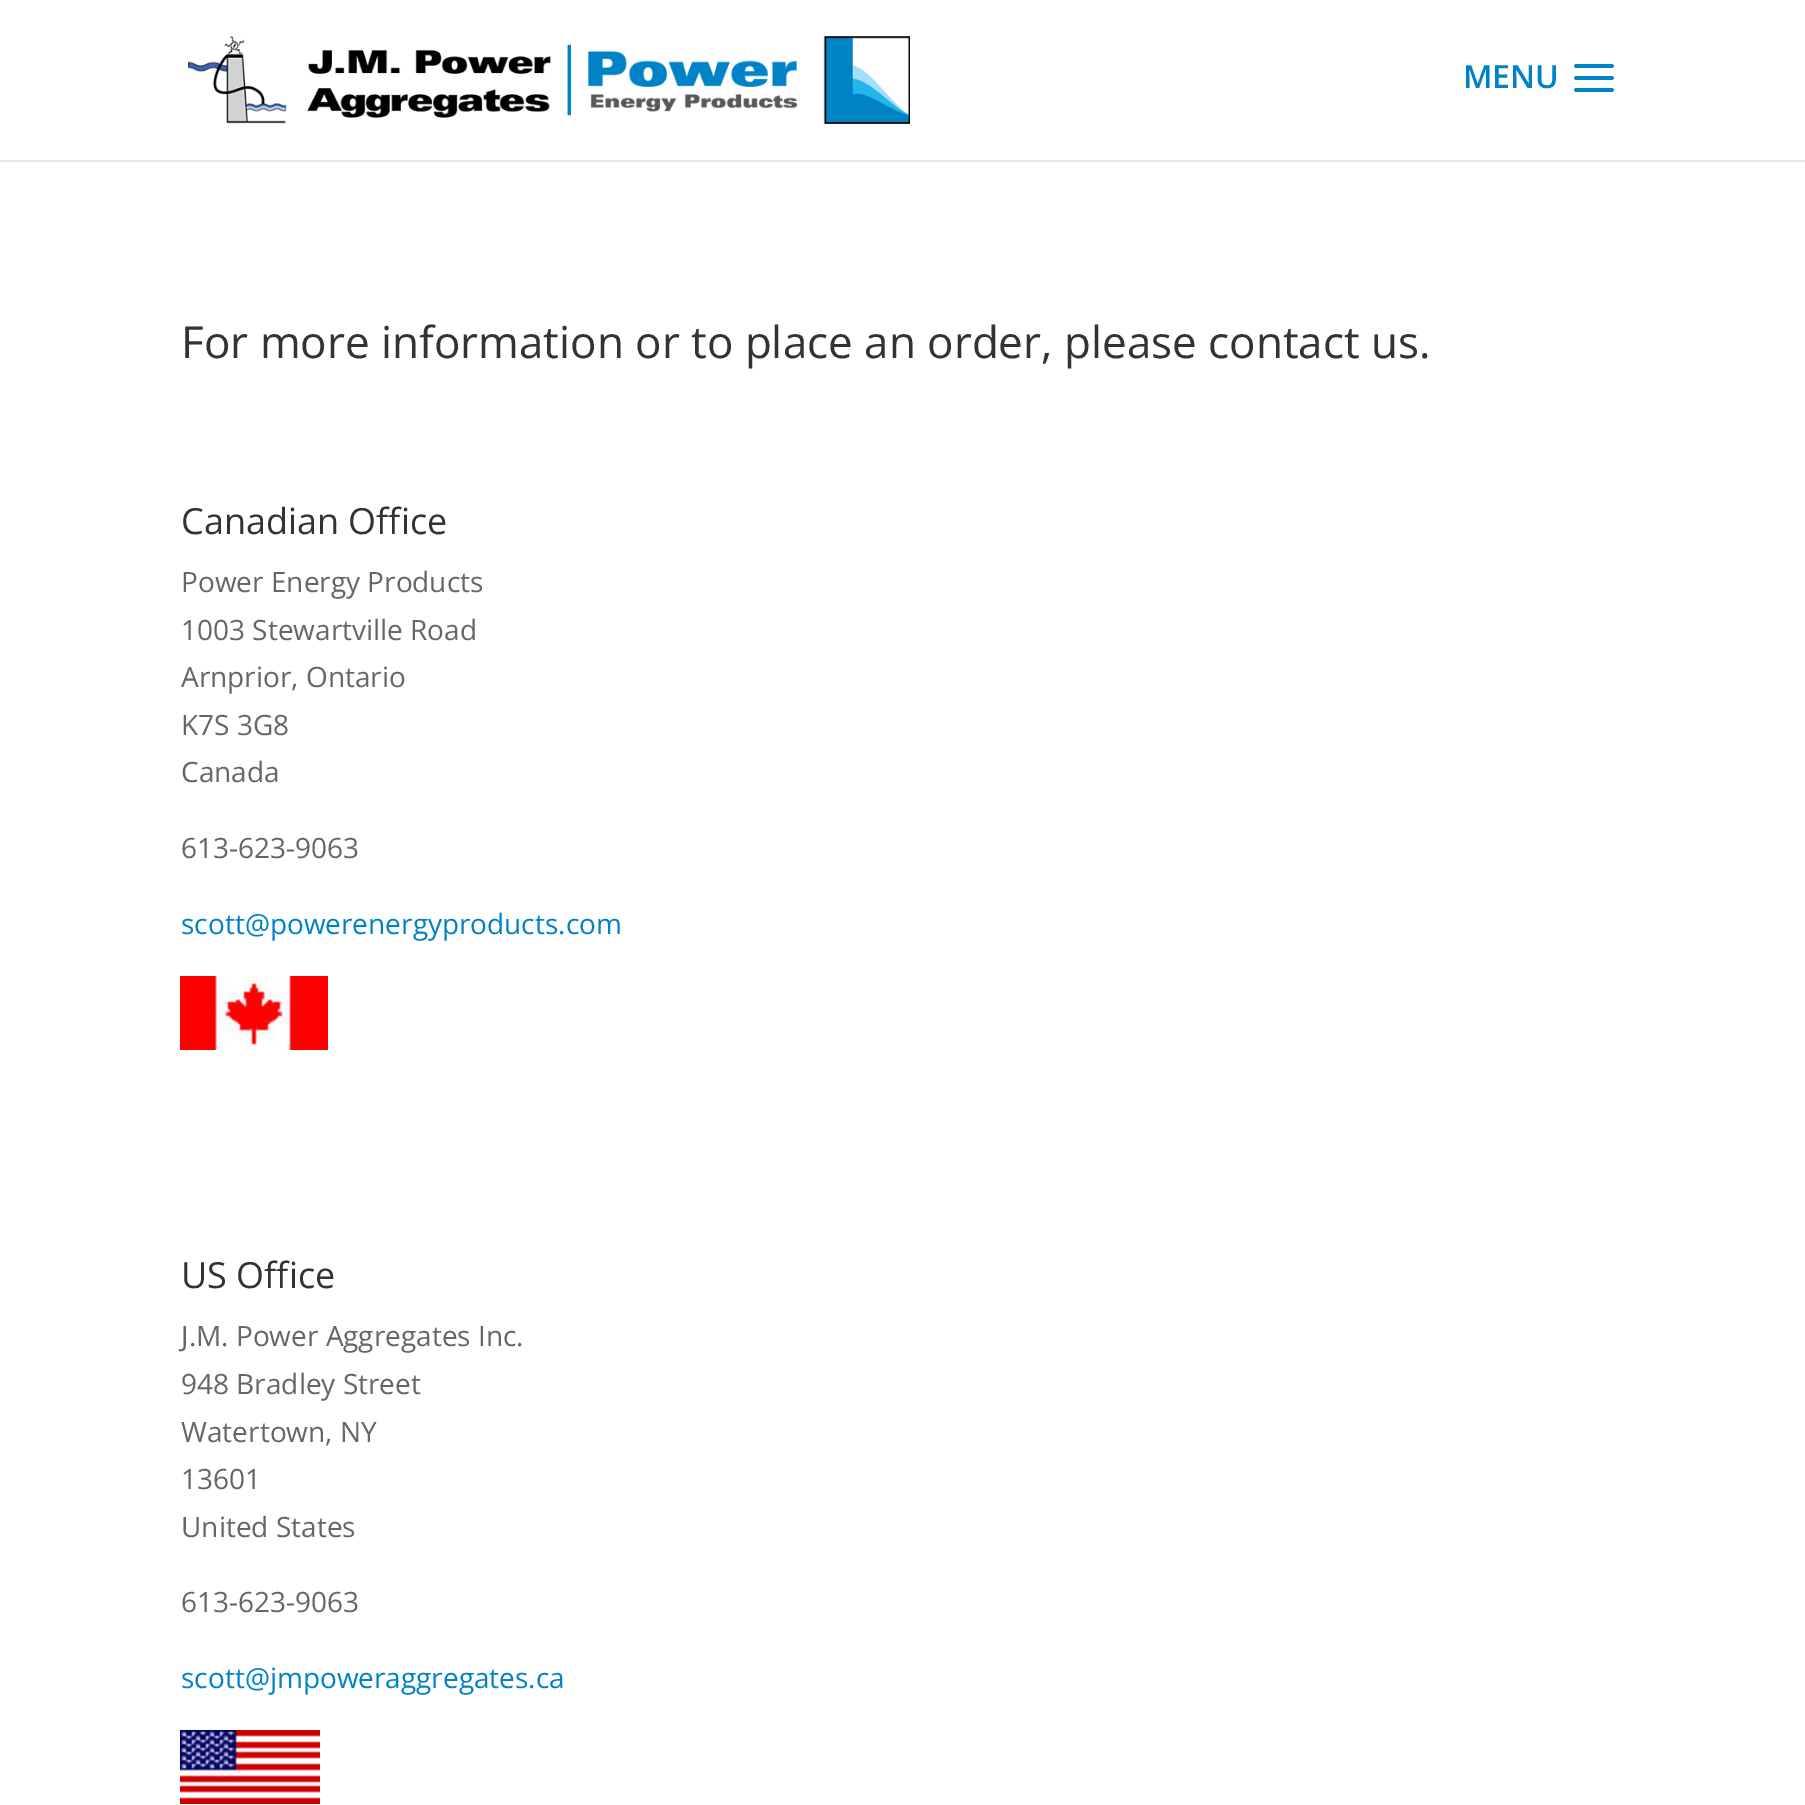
%!PS
<< /PageSize [1805 1805] >> setpagedevice
/co { dup -16 bitshift 255 div exch dup -8 bitshift 255 and 255 div exch 255 and 255 div setrgbcolor } def
/fn { [ exch dup neg 0 0 3 -1 roll 0 0 ] selectfont } def
/tx { co fn moveto show } def
/bx { co rectfill } def
/im { 5 dict begin { /h /w /y /x /name } { exch def } forall
  gsave x y translate w h scale
  w h 8 [w 0 0 h 0 0] name (r) file false 3 colorimage grestore end } def
0 1805 translate 1 -1 scale
4 setmiterlimit
0 0 1805 1805 16#FFFFFF bx
0 160 1805 2 16#E6E6E6 bx
(media/1.raw) 188 36 722 88 im
(media/2.raw) 1574 64 40 28 im
(media/3.raw) 180 976 148 74 im
(media/4.raw) 180 1730 140 74 im
(MENU) 1463 88 /OpenSans-SemiBold 32 16#0082C7 tx
(For more information or to place an order, please contact us.) 181 358 /OpenSans-Regular 44 16#333333 tx
(Canadian Office) 181 534 /OpenSans-Regular 36 16#333333 tx
(Power Energy Products) 181 592 /OpenSans-Regular 28 16#666666 tx
(1003 Stewartville Road) 181 640 /OpenSans-Regular 28 16#666666 tx
(Arnprior, Ontario) 181 687 /OpenSans-Regular 28 16#666666 tx
(K7S 3G8) 181 735 /OpenSans-Regular 28 16#666666 tx
(Canada) 181 782 /OpenSans-Regular 28 16#666666 tx
(613-623-9063) 181 858 /OpenSans-Regular 28 16#666666 tx
(scott@powerenergyproducts.com) 181 934 /OpenSans-Regular 28 16#0082C7 tx
(US Office) 181 1288 /OpenSans-Regular 36 16#333333 tx
(J.M. Power Aggregates Inc.) 181 1346 /OpenSans-Regular 28 16#666666 tx
(948 Bradley Street) 181 1394 /OpenSans-Regular 28 16#666666 tx
(Watertown, NY) 181 1442 /OpenSans-Regular 28 16#666666 tx
(13601) 181 1489 /OpenSans-Regular 28 16#666666 tx
(United States) 181 1537 /OpenSans-Regular 28 16#666666 tx
(613-623-9063) 181 1612 /OpenSans-Regular 28 16#666666 tx
(scott@jmpoweraggregates.ca) 181 1688 /OpenSans-Regular 28 16#0082C7 tx
showpage
